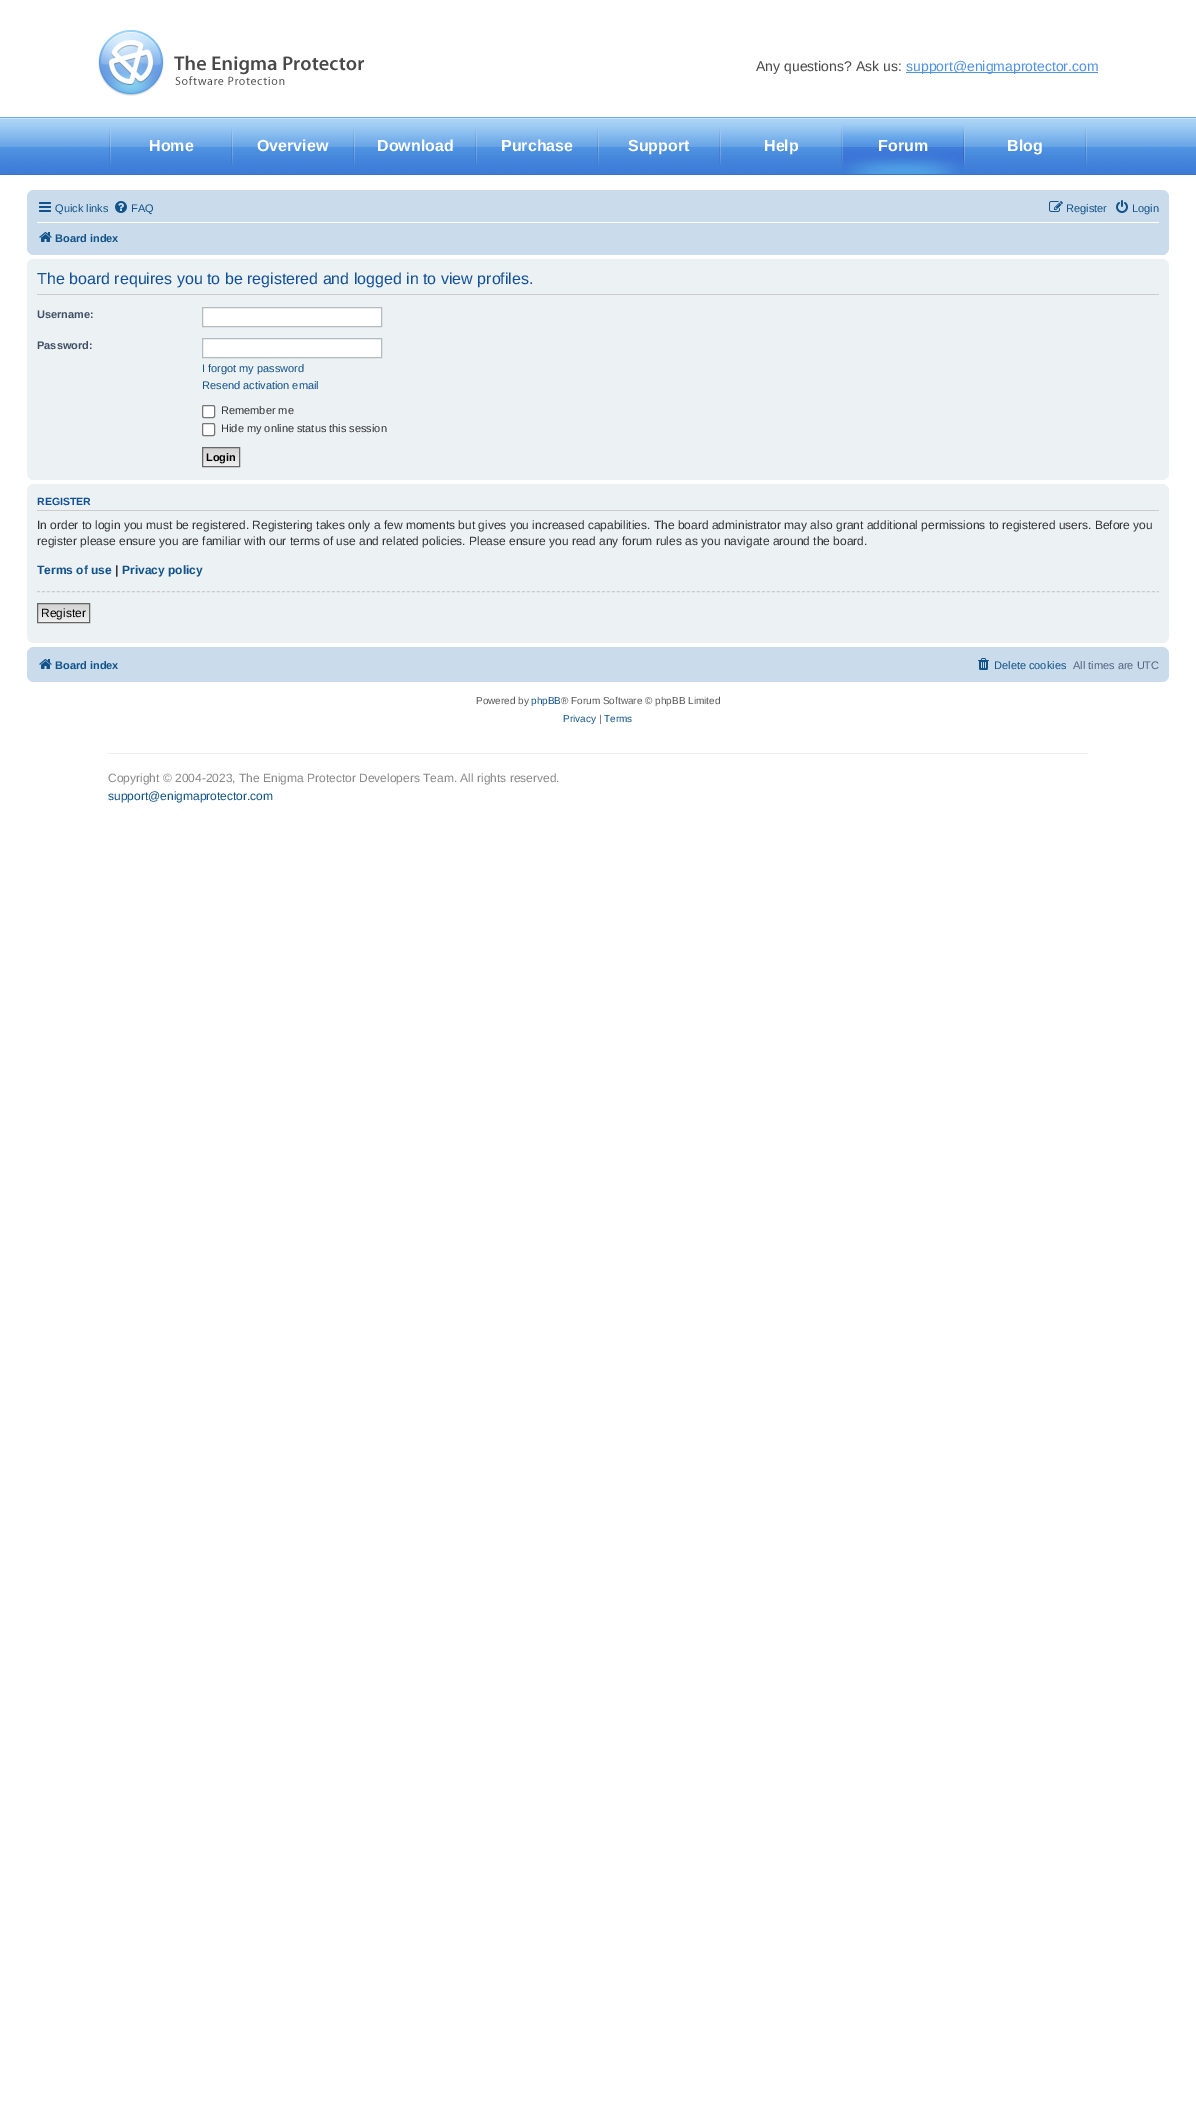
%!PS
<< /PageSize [1196 2117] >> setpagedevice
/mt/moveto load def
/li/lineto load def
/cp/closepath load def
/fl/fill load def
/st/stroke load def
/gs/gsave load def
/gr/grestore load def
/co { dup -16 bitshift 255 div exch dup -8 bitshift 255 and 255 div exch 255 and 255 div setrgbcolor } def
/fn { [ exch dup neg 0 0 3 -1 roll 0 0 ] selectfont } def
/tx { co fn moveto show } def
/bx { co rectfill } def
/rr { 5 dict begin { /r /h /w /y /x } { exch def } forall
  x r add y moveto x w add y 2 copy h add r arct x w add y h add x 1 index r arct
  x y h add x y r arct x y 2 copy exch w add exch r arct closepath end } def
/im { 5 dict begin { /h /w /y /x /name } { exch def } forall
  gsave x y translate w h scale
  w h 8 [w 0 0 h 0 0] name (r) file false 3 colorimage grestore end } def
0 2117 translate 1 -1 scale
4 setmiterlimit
0 0 1196 2117 16#FFFFFF bx
(media/1.raw) 98 30 266 66 im
906 72 192 1 16#5091E5 bx
(media/2.raw) 0 118 1196 56 im
0 117 1196 1 16#6AB2EE bx
0 174 1196 1 16#3B73C7 bx
(media/3.raw) 109 128 978 38 im
(media/4.raw) 231 128 1 36 im
(media/5.raw) 232 128 122 38 im
(media/5.raw) 354 128 122 38 im
(media/5.raw) 476 128 122 38 im
(media/5.raw) 598 128 122 38 im
(media/5.raw) 720 128 122 38 im
(media/6.raw) 842 125 122 49 im
(media/7.raw) 964 129 122 37 im
16#CADCEB co
27 190 1142 65 7 rr fl
(media/8.raw) 39 202 12 10 im
(media/9.raw) 115 201 12 12 im
(media/10.raw) 1049 201 14 11 im
(media/11.raw) 1116 200 12 13 im
37 222 1122 1 16#FFFFFF bx
(media/12.raw) 39 232 13 10 im
16#ECF1F3 co
27 259 1142 221 7 rr fl
37 294 1122 1 16#CCCCCC bx
16#FFFFFF co
202.5 307.5 mt 381.5 307.5 li 381.5 326.5 li 202.5 326.5 li cp gs fl gr
16#B4BAC0 co
st
16#FFFFFF co
202.5 338.5 mt 381.5 338.5 li 381.5 357.5 li 202.5 357.5 li cp gs fl gr
16#B4BAC0 co
st
16#FFFFFF co
202.5 405.5 12 12 1.5 rr gs fl gr
16#767676 co
st
16#FFFFFF co
202.5 423.5 12 12 1.5 rr gs fl gr
16#767676 co
st
gs 203 448 mt 239 448 li 239 466 li 203 466 li cp clip newpath
<< /ShadingType 2 /ColorSpace /DeviceRGB /Coords [221 448 221 466] /Extend [true true] /Function << /FunctionType 2 /Domain [0 1] /C0 [.824 .824 .824] /C1 [.937 .937 .937] /N 1 >> >> shfill gr
16#666666 co
202.5 447.5 37 19 rectstroke
16#ECF1F3 co
27 484 1142 159 7 rr fl
37 510 1122 1 16#CCCCCC bx
[3 2] 0 setdash
37 591.5 mt 1159 591.5 li st
gs 38 604 mt 89 604 li 89 622 li 38 622 li cp clip newpath
<< /ShadingType 2 /ColorSpace /DeviceRGB /Coords [64 604 64 622] /Extend [true true] /Function << /FunctionType 2 /Domain [0 1] /C0 [.824 .824 .824] /C1 [.937 .937 .937] /N 1 >> >> shfill gr
16#666666 co
[] 0 setdash
37.5 603.5 52 19 rectstroke
16#CADCEB co
27 647 1142 35 7 rr fl
(media/12.raw) 39 659 13 10 im
(media/13.raw) 978 658 11 12 im
108 753 980 1 16#EEEEEE bx
(Any questions? Ask us:) 756 71 /LiberationSans-Regular 14 16#494949 tx
(support@enigmaprotector.com) 906 71 /LiberationSans-Regular 14 16#5091E5 tx
(Home) 149 151 /LiberationSans-Bold 16 16#FFFFFF tx
(Overview) 257 151 /LiberationSans-Bold 16 16#FFFFFF tx
(Download) 377 151 /LiberationSans-Bold 16 16#FFFFFF tx
(Purchase) 501 151 /LiberationSans-Bold 16 16#FFFFFF tx
(Support) 628 151 /LiberationSans-Bold 16 16#FFFFFF tx
(Help) 764 151 /LiberationSans-Bold 16 16#FFFFFF tx
(Forum) 878 151 /LiberationSans-Bold 16 16#FFFFFF tx
(Blog) 1007 151 /LiberationSans-Bold 16 16#FFFFFF tx
(Quick links) 55 212 /LiberationSans-Regular 11 16#105289 tx
(FAQ) 131 212 /LiberationSans-Regular 11 16#105289 tx
(Register) 1066 212 /LiberationSans-Regular 11 16#105289 tx
(Login) 1132 212 /LiberationSans-Regular 11 16#105289 tx
(Board index) 55 242 /LiberationSans-Bold 11 16#105289 tx
(The board requires you to be registered and logged in to view profiles.) 37 284 /LiberationSans-Regular 16 16#115098 tx
(Username:) 37 318 /LiberationSans-Bold 11 16#425067 tx
(Password:) 37 349 /LiberationSans-Bold 11 16#425067 tx
(I forgot my password) 202 372 /LiberationSans-Regular 11 16#105289 tx
(Resend activation email) 202 389 /LiberationSans-Regular 11 16#105289 tx
(Remember me) 221 414 /LiberationSans-Regular 11 16#333333 tx
(Hide my online status this session) 221 432 /LiberationSans-Regular 11 16#333333 tx
(Login) 206 461 /LiberationSans-Bold 11 16#000000 tx
(REGISTER) 37 505 /LiberationSans-Bold 10.5 16#115098 tx
(In order to login you must be registered. Registering takes only a few moments but gives you increased capabilities. The board administrator may also grant additional permissions to registered users. Before you) 37 529 /LiberationSans-Regular 12 16#333333 tx
(register please ensure you are familiar with our terms of use and related policies. Please ensure you read any forum rules as you navigate around the board.) 37 545 /LiberationSans-Regular 12 16#333333 tx
(Terms of use) 37 574 /LiberationSans-Bold 12 16#105289 tx
(|) 115 574 /LiberationSans-Bold 12 16#333333 tx
(Privacy policy) 122 574 /LiberationSans-Bold 12 16#105289 tx
(Register) 41 617 /LiberationSans-Regular 12 16#000000 tx
(Board index) 55 669 /LiberationSans-Bold 11 16#105289 tx
(Delete cookies) 994 669 /LiberationSans-Regular 11 16#105289 tx
(All times are UTC) 1073 669 /LiberationSans-Regular 11 16#536482 tx
(Powered by) 476 704 /LiberationSans-Regular 10 16#555555 tx
(phpBB) 531 704 /LiberationSans-Regular 10 16#105289 tx
(® Forum Software © phpBB Limited) 561 704 /LiberationSans-Regular 10 16#555555 tx
(Privacy) 563 722 /LiberationSans-Regular 10 16#105289 tx
(|) 599 722 /LiberationSans-Regular 10 16#555555 tx
(Terms) 604 722 /LiberationSans-Regular 10 16#105289 tx
(Copyright © 2004-2023, The Enigma Protector Developers Team. All rights reserved.) 108 782 /LiberationSans-Regular 12 16#898989 tx
(support@enigmaprotector.com) 108 800 /LiberationSans-Regular 12 16#105289 tx
showpage
